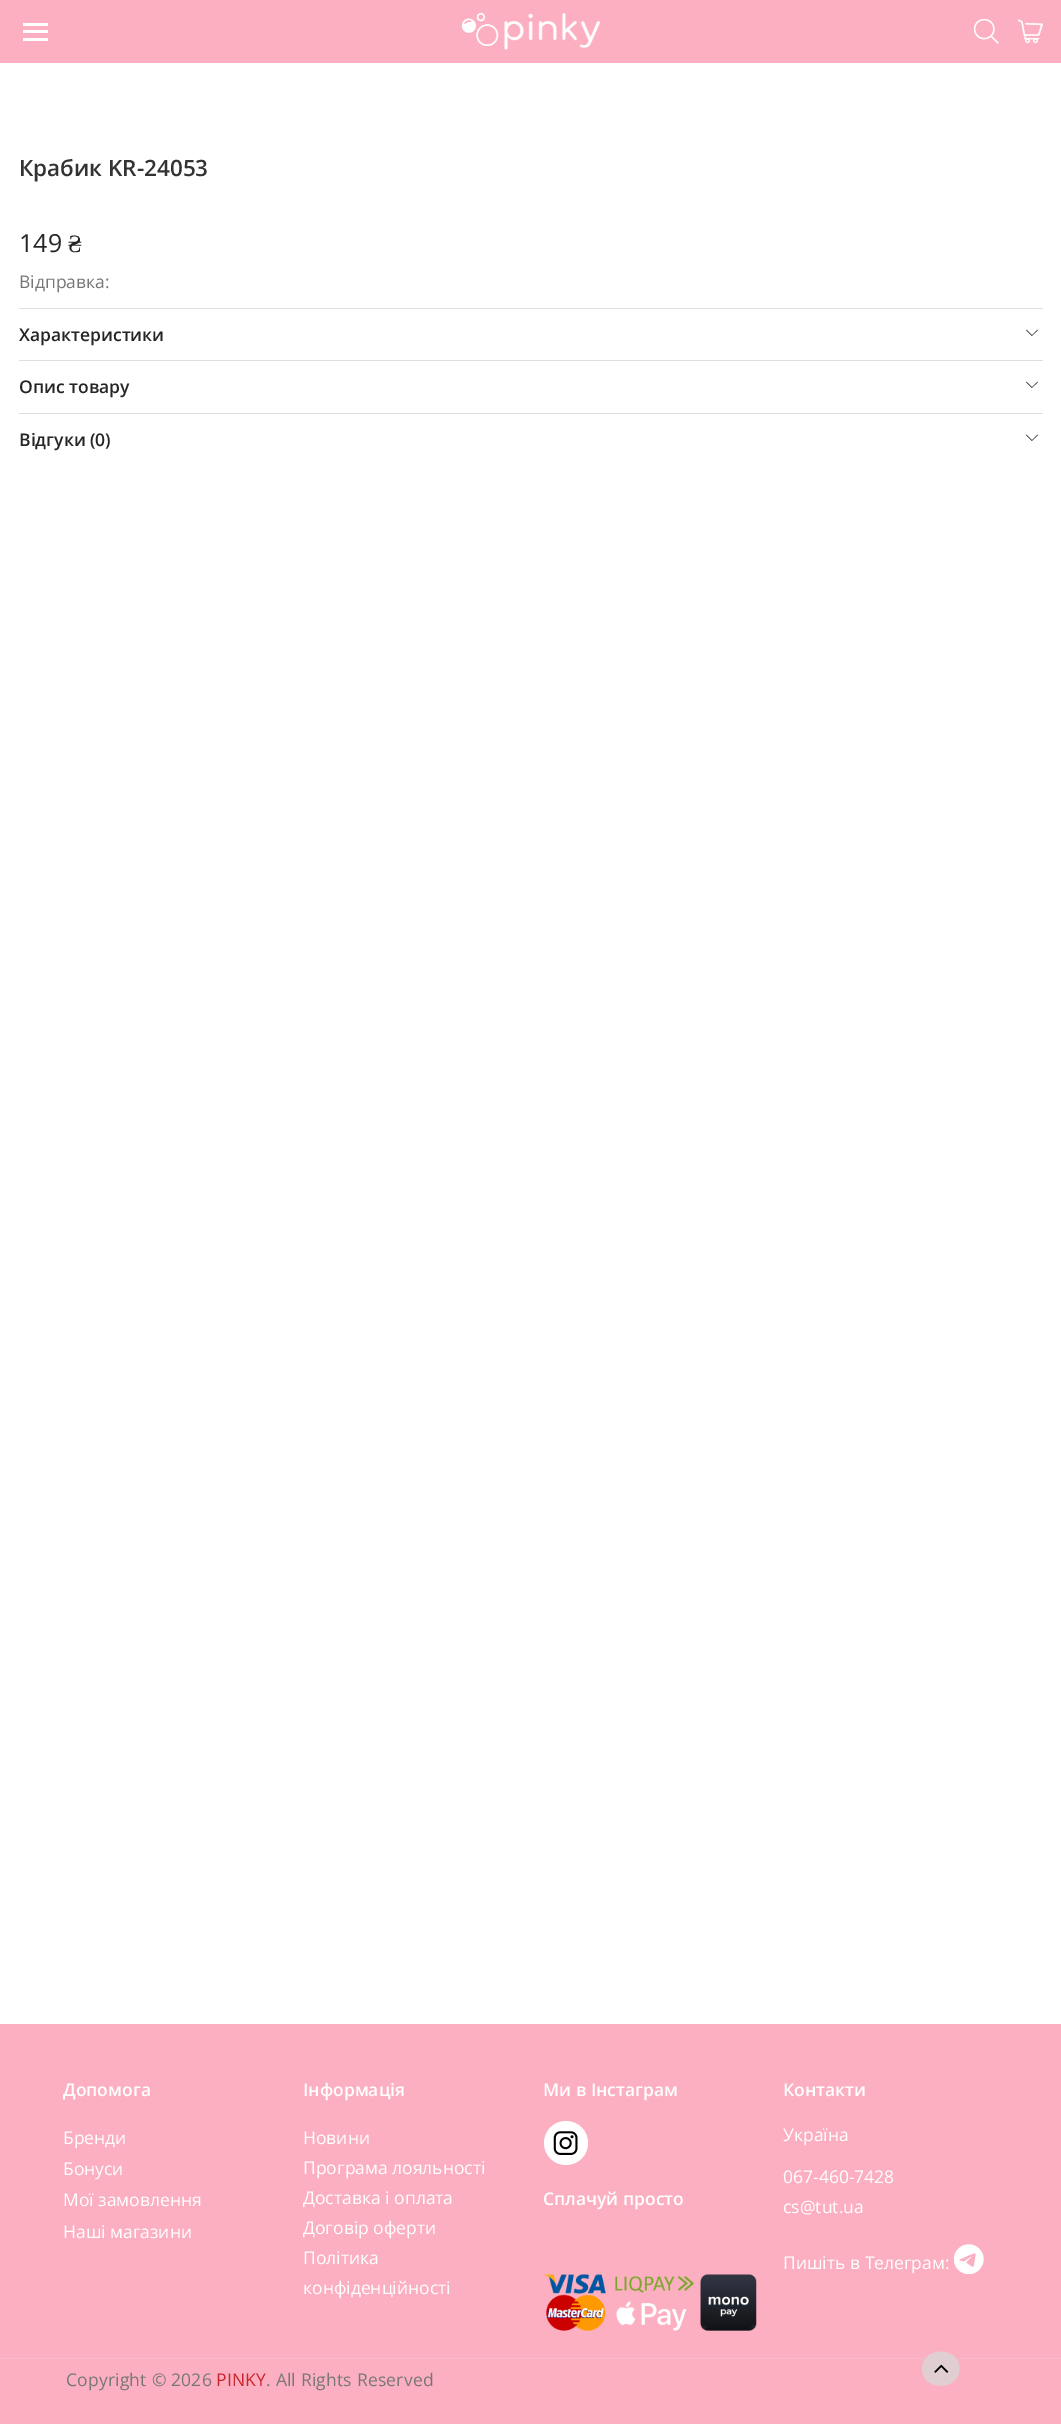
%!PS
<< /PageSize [1061 2424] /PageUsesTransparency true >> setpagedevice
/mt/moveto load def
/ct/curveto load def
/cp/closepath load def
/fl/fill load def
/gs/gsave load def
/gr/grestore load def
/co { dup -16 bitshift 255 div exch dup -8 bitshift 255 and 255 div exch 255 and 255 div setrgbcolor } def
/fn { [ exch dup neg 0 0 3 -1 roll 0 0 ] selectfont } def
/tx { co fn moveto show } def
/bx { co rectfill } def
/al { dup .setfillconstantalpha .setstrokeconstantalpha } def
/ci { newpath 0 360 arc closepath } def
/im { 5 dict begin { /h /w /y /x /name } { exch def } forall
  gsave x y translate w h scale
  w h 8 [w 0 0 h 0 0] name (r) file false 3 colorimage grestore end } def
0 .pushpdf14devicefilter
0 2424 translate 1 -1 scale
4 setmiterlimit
0 0 1061 2424 16#FFFFFF bx
0 0 1061 63 16#FCAFC0 bx
23 30 25 3 16#FFFFFF bx
23 23 25 3 16#FFFFFF bx
23 38 25 3 16#FFFFFF bx
(media/1.raw) 461 12 139 38 im
(media/2.raw) 974 19 25 25 im
(media/3.raw) 1018 19 25 25 im
19 308 1024 1 16#DEDEDE bx
19 360 1024 1 16#DEDEDE bx
19 413 1024 1 16#DEDEDE bx
0 2024 1061 400 16#FCAFC0 bx
16#FFFFFF co
566 2143 22 ci fl
(media/4.raw) 553 2131 25 24 im
(media/5.raw) 543 2274 214 57 im
(media/6.raw) 954 2244 30 30 im
0 2358 1061 1 16#F3BAC7 bx
0.75 al
16#D8D8D8 co
922 2368.5 mt 922 2346 959.5 2346 959.5 2368.5 ct 959.5 2391.5 922 2391.5 922 2368.5 ct cp fl
1 al
(media/7.raw) 934 2364 15 9 im
(Крабик KR-24053) 19 176 /OpenSans-SemiBold 22.5 16#333333 tx
(149) 19 252 /OpenSans-Regular 25 16#252525 tx
(₴) 68 252 /LiberationSerif-Regular 25 16#252525 tx
(Відправка:) 19 288 /OpenSans-Regular 17.5 16#777777 tx
(Характеристики) 19 341 /OpenSans-SemiBold 17.5 16#252525 tx
/LiberationSerif-Bold 14 fn
16#000000 co
gs 1030 338 translate -45 rotate 0 0 mt (∟) show gr
(Опис товару) 19 393 /OpenSans-SemiBold 17.5 16#252525 tx
/LiberationSerif-Bold 14 fn
16#000000 co
gs 1030 390 translate -45 rotate 0 0 mt (∟) show gr
(Відгуки \(0\)) 19 446 /OpenSans-SemiBold 17.5 16#252525 tx
/LiberationSerif-Bold 14 fn
16#000000 co
gs 1030 443 translate -45 rotate 0 0 mt (∟) show gr
(Допомога) 63 2096 /OpenSans-SemiBold 17.5 16#FFFFFF tx
(Бренди) 63 2144 /OpenSans-Regular 17.5 16#FFFFFF tx
(Бонуси) 63 2175 /OpenSans-Regular 17.5 16#FFFFFF tx
(Мої замовлення) 63 2206 /OpenSans-Regular 17.5 16#FFFFFF tx
(Наші магазини) 63 2238 /OpenSans-Regular 17.5 16#FFFFFF tx
(Інформація) 303 2096 /OpenSans-SemiBold 17.5 16#FFFFFF tx
(Новини) 303 2144 /OpenSans-Regular 17.5 16#FFFFFF tx
(Програма лояльності) 303 2174 /OpenSans-Regular 17.5 16#FFFFFF tx
(Доставка і оплата) 303 2204 /OpenSans-Regular 17.5 16#FFFFFF tx
(Договір оферти) 303 2234 /OpenSans-Regular 17.5 16#FFFFFF tx
(Політика) 303 2264 /OpenSans-Regular 17.5 16#FFFFFF tx
(конфіденційності) 303 2294 /OpenSans-Regular 17.5 16#FFFFFF tx
(Ми в Інстаграм) 543 2096 /OpenSans-SemiBold 17.5 16#FFFFFF tx
(Сплачуй просто) 543 2205 /OpenSans-SemiBold 17.5 16#FFFFFF tx
(Контакти) 783 2096 /OpenSans-SemiBold 17.5 16#FFFFFF tx
(Україна) 783 2141 /OpenSans-Regular 17.5 16#FFFFFF tx
(067-460-7428) 783 2183 /OpenSans-Regular 17.5 16#FFFFFF tx
(cs@tut.ua) 783 2213 /OpenSans-Regular 17.5 16#FFFFFF tx
(Пишіть в Телеграм:) 783 2269 /OpenSans-Regular 17.5 16#FFFFFF tx
16#777777 co
66 2386 mt .2 0 (Copyright © 2026) ashow
16#C9252C co
216 2386 mt .2 0 (PINKY) ashow
16#777777 co
266 2386 mt .2 0 (. All Rights Reserved) ashow
.poppdf14devicefilter showpage
